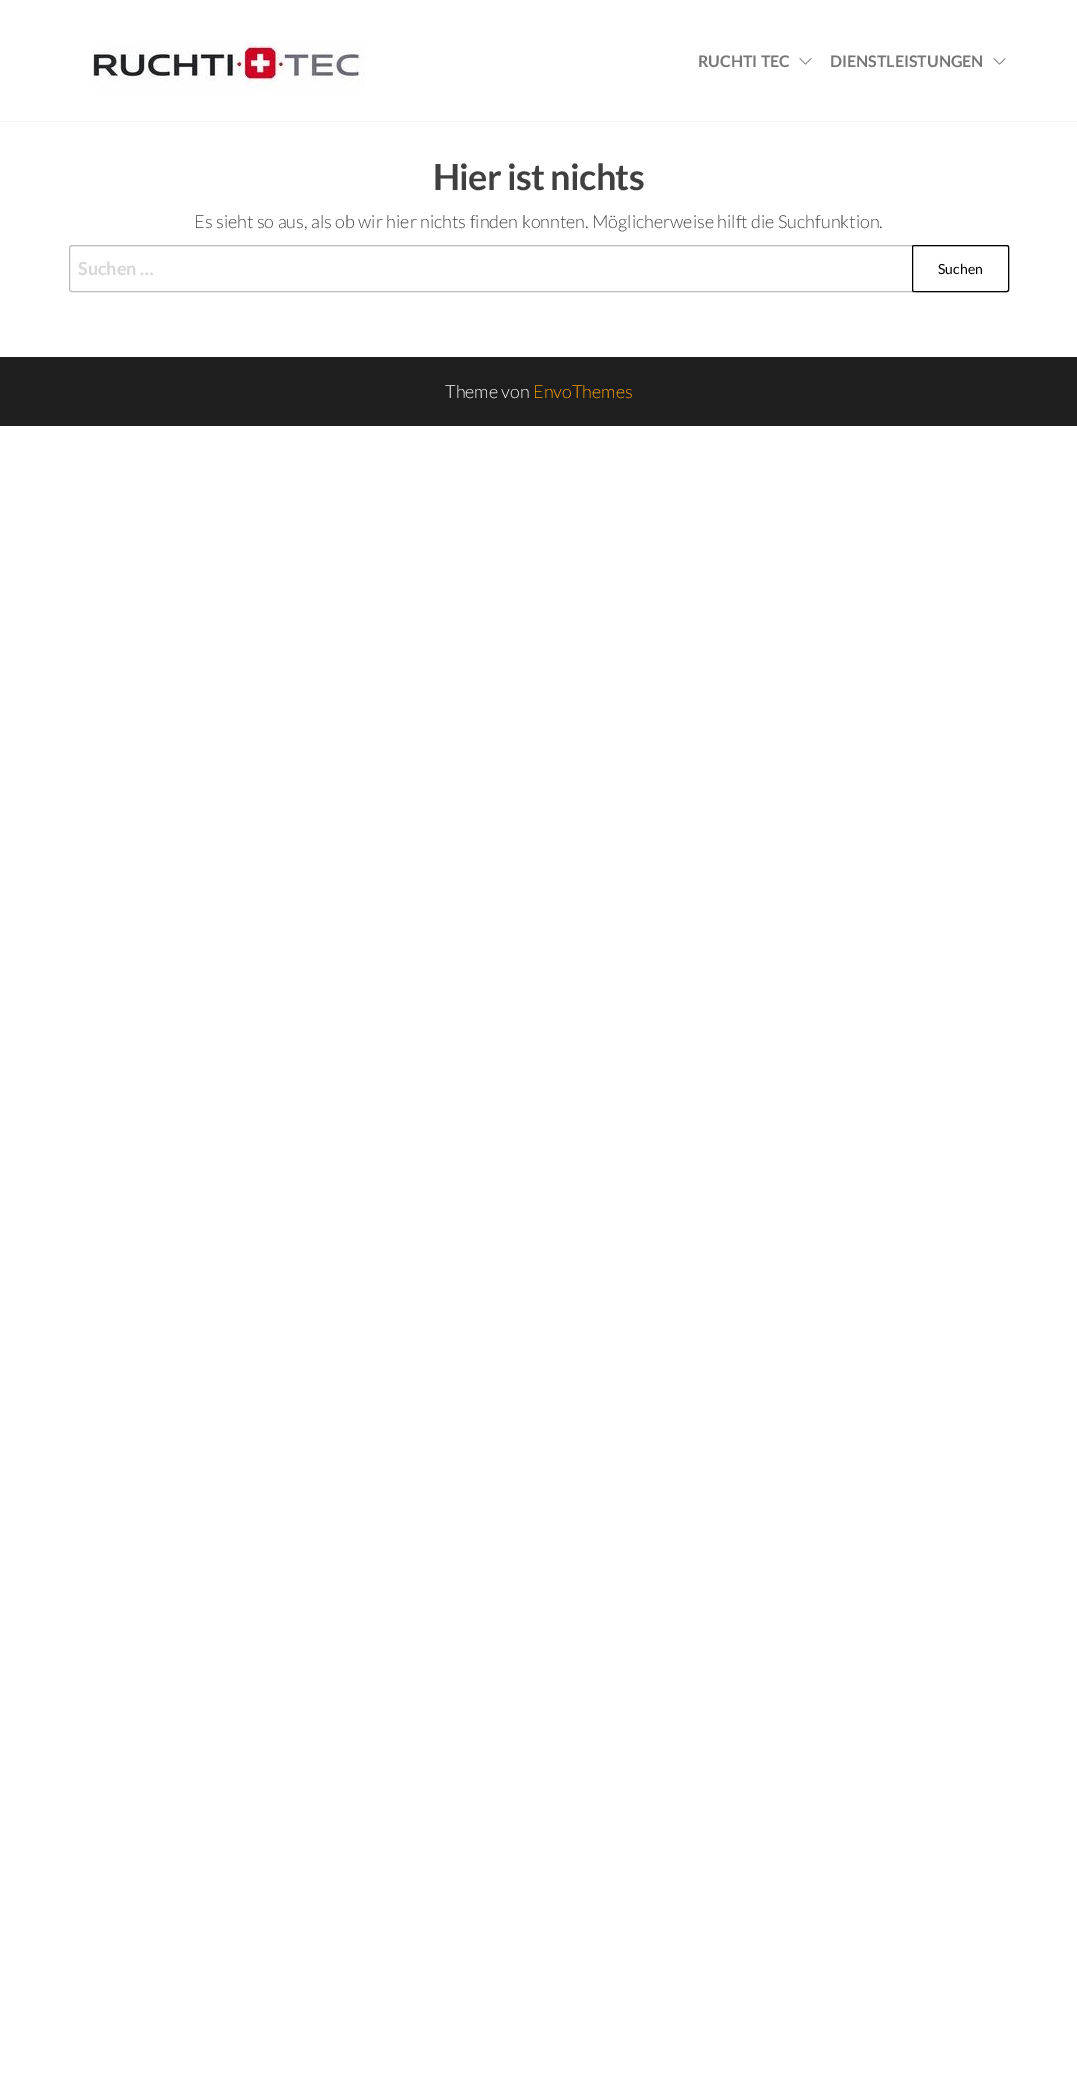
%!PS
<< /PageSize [1077 2081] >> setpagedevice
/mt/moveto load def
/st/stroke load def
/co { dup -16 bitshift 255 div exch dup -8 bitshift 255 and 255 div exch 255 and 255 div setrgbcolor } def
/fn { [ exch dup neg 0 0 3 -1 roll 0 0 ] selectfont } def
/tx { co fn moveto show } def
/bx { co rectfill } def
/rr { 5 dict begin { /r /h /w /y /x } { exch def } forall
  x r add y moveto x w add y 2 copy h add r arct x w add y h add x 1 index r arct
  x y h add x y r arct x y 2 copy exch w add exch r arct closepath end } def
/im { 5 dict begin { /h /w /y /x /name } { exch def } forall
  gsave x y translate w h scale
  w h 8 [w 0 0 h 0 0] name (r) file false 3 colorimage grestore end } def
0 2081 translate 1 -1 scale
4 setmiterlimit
0 0 1077 2081 16#FFFFFF bx
0 121 1077 1 16#F6F6F6 bx
(media/1.raw) 93 41 272 49 im
(media/2.raw) 799 58 13 7 im
(media/2.raw) 993 58 13 7 im
16#BBBBBB co
69.5 245.5 939 46 2.5 rr st
16#000000 co
912.5 245.5 96 46 1.5 rr st
0 357 1077 69 16#1E1E1E bx
(RUCHTI TEC) 698 67 /Lato-Bold 16 16#777777 tx
(DIENSTLEISTUNGEN) 830 67 /Lato-Bold 16 16#777777 tx
/Lato-Bold 36 fn
16#404040 co
433 190 mt -.75 0 (Hier ist nichts) ashow
(Es sieht so aus, als ob wir hier nichts finden konnten. Möglicherweise hilft die Suchfunktion.) 194 228 /Lato-Light 18 16#404040 tx
(Suchen …) 78 275 /Lato-Bold 18 16#D7D7D7 tx
(Suchen) 938 274 /Lato-Regular 14 16#000000 tx
(Theme von) 445 398 /Lato-Light 18 16#FFFFFF tx
(EnvoThemes) 533 398 /Lato-Light 18 16#FFA200 tx
showpage
